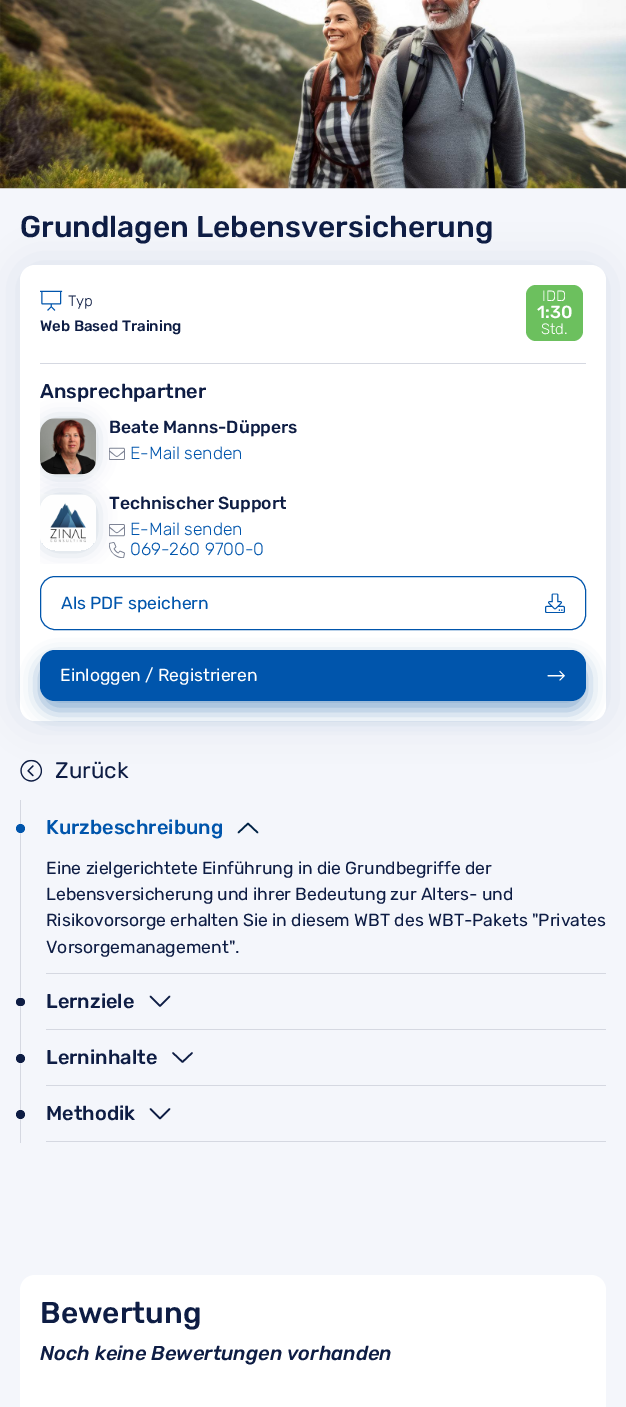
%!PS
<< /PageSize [626 1407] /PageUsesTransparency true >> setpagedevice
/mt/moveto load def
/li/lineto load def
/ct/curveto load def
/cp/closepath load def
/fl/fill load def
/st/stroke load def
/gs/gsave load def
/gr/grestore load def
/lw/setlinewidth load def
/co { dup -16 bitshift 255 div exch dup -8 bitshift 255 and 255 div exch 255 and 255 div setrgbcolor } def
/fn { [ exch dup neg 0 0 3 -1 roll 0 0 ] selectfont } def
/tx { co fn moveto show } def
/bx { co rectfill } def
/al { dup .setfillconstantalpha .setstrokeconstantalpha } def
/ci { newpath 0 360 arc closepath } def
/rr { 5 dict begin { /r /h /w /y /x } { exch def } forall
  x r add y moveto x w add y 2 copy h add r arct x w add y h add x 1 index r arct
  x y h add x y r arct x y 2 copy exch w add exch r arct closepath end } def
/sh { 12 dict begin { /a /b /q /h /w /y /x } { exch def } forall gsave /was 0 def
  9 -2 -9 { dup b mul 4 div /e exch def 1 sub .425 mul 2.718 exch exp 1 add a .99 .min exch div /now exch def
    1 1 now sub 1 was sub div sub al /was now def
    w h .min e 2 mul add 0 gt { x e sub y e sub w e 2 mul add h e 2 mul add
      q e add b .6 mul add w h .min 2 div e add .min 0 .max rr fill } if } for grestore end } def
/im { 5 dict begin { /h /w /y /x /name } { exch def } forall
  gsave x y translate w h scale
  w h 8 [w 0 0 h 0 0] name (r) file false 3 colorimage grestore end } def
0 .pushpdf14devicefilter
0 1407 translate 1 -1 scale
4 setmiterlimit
0 0 626 1407 16#F4F6FB bx
(media/1.raw) 0 0 626 189 im
(media/10.raw) 20 759 23 23 im
16#002F5F co
20 265 586 456 15 19 .1 sh
16#FFFFFF co
20 265 586 456 15 rr fl
40 363 546 1 16#D5D8E1 bx
(media/2.raw) 40 290 23 21 im
16#6CC05E co
526 285 57 56 10 rr fl
(media/4.raw) 109 447 16 13 im
gs
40 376 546 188 rectclip
16#002F5F co
40 419 56 56 15 9.5 .2 sh
gr
(media/3.raw) 40 418 57 57 im
(media/6.raw) 109 524 16 13 im
(media/7.raw) 109 542 16 16 im
16#0055AC co
40.5 576.5 545 53 14.5 rr st
gs
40 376 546 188 rectclip
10 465 mt 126 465 li 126 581 li 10 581 li cp 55 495 mt 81 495 li 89.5 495 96 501.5 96 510 ct 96 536 li 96 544.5 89.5 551 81 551 ct 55 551 li 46.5 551 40 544.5 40 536 ct 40 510 li 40 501.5 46.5 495 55 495 ct cp eoclip newpath
16#002F5F co
40 495 56 56 15 9.5 .2 sh
gr
(media/5.raw) 40 494 56 49 im
(media/8.raw) 545 593 20 20 im
16#004D9B co
40 659 546 51 15 9.5 .45 sh
16#0055AC co
40 650 546 51 15 rr fl
(media/9.raw) 547 670 18 11 im
20 800 1 343 16#D5D8E1 bx
46 973 560 1 16#D5D8E1 bx
16#0055AC co
20.5 828.5 4.5 ci fl
16#002245 co
1.6 lw
1 setlinecap
1 setlinejoin
257.5 832.5 mt 248 823.5 li 238.5 832.5 li st
46 1029 560 1 16#D5D8E1 bx
16#0E1D44 co
16 998 9 8 4 rr fl
150.5 996.5 mt 160 1006 li 169.5 996.5 li st
46 1085 560 1 16#D5D8E1 bx
16#0E1D44 co
20.5 1058.5 4.5 ci fl
173 1053 mt 182.5 1062 li 192 1053 li st
46 1141 560 1 16#D5D8E1 bx
16#0E1D44 co
20.5 1114.5 4.5 ci fl
150.5 1109 mt 160 1118.5 li 169.5 1109 li st
16#FFFFFF co
20 1275 586 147 15 rr fl
(Grundlagen Lebensversicherung) 20 237 /Rubik-Medium 30 16#0E1D44 tx
(Typ) 68 306 /Rubik-Light 15 16#0E1D44 tx
(Web Based Training) 40 331 /Rubik-Medium 15 16#0E1D44 tx
(IDD) 542 301 /Rubik-Light 15 16#FFFFFF tx
(1:30) 537 318 /Rubik-Medium 17.5 16#FFFFFF tx
(Std.) 541 334 /Rubik-Light 15 16#FFFFFF tx
(Ansprechpartner) 40 398 /Rubik-Medium 20 16#0E1D44 tx
(Beate Manns-Düppers) 109 433 /Rubik-Medium 17.5 16#0E1D44 tx
(E-Mail senden) 130 459 /Rubik-Light 17.5 16#0055AC tx
(Technischer Support) 109 509 /Rubik-Medium 17.5 16#0E1D44 tx
(E-Mail senden) 130 535 /Rubik-Light 17.5 16#0055AC tx
(069-260 9700-0) 130 555 /Rubik-Light 17.5 16#0055AC tx
(Als PDF speichern) 61 609 /Rubik-Regular 17.5 16#0055AC tx
(Einloggen / Registrieren) 60 681 /Rubik-Regular 17.5 16#FFFFFF tx
(Zurück) 55 778 /Rubik-Regular 22.5 16#0E1D44 tx
(Kurzbeschreibung) 46 834 /Rubik-Medium 20 16#0055AC tx
(Eine zielgerichtete Einführung in die Grundbegriffe der) 46 874 /Rubik-Regular 17.5 16#0E1D44 tx
(Lebensversicherung und ihrer Bedeutung zur Alters- und) 46 900 /Rubik-Regular 17.5 16#0E1D44 tx
(Risikovorsorge erhalten Sie in diesem WBT des WBT-Pakets "Privates) 46 926 /Rubik-Regular 17.5 16#0E1D44 tx
(Vorsorgemanagement".) 46 953 /Rubik-Regular 17.5 16#0E1D44 tx
(Lernziele) 46 1008 /Rubik-Medium 20 16#0E1D44 tx
(Lerninhalte) 46 1064 /Rubik-Medium 20 16#0E1D44 tx
(Methodik) 46 1120 /Rubik-Medium 20 16#0E1D44 tx
(Bewertung) 40 1323 /Rubik-Medium 30 16#0E1D44 tx
(Noch keine Bewertungen vorhanden) 40 1360 /Rubik-MediumItalic 20 16#0E1D44 tx
.poppdf14devicefilter showpage
